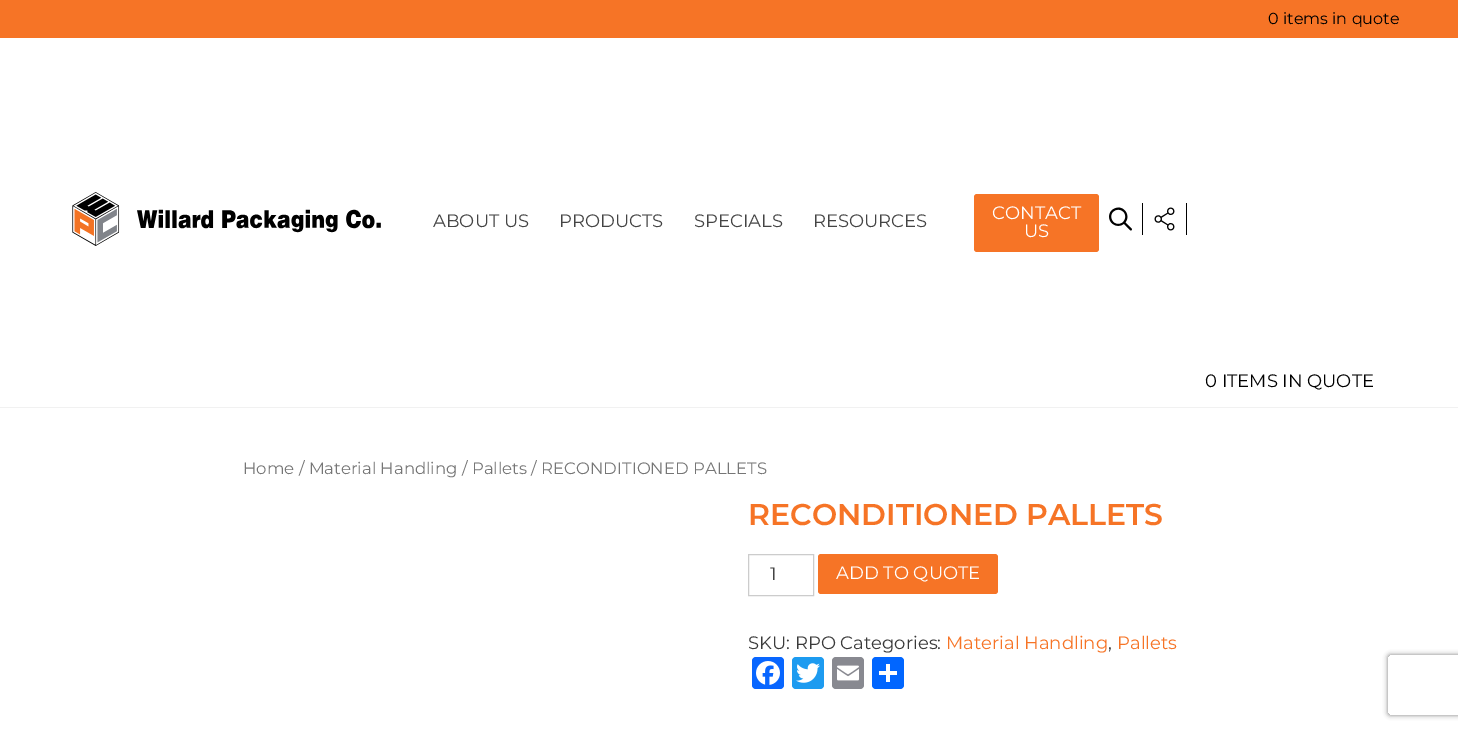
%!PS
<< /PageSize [1458 729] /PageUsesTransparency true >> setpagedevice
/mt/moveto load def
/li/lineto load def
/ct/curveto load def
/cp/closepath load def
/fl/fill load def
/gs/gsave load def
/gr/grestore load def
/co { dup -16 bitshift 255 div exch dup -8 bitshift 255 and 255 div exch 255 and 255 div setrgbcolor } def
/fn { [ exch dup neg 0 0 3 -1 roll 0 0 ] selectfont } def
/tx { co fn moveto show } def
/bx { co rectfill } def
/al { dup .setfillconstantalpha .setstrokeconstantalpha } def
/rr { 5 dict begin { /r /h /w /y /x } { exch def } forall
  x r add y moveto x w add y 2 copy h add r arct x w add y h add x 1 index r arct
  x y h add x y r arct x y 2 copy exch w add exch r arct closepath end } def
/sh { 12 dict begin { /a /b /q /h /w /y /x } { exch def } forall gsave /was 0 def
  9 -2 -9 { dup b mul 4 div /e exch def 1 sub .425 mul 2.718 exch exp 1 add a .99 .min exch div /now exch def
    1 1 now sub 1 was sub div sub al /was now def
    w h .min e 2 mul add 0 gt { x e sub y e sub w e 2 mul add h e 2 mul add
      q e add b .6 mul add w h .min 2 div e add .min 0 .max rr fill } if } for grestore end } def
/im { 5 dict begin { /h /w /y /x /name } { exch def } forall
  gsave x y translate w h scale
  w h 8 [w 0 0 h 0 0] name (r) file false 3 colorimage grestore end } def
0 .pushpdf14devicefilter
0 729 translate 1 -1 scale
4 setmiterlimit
0 0 1458 729 16#FFFFFF bx
0 0 1458 38 16#F67426 bx
(media/1.raw) 72 192 309 54 im
974 194 125 58 3 rr fl
1142 203 1 32 16#000000 bx
(media/2.raw) 1109 207 23 24 im
1186 203 1 32 16#000000 bx
(media/3.raw) 1154 207 21 24 im
0 407 1458 1 16#F1F1F1 bx
16#CCCCCC co
748.5 554.5 65 41 rectstroke
16#F67426 co
818 554 180 40 3 rr fl
16#0866FF co
752 657 32 32 4 rr fl
(media/4.raw) 756 661 24 24 im
16#1D9BF0 co
792 657 32 32 4 rr fl
(media/5.raw) 796 663 24 20 im
16#888990 co
832 657 32 32 4 rr fl
(media/6.raw) 837 665 22 16 im
16#0166FF co
872 657 32 32 4 rr fl
886 664 4 18 16#FFFFFF bx
879 671 18 4 16#FFFFFF bx
gs
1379 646 mt 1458 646 li 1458 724 li 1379 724 li cp 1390 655 mt 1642 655 li 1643 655 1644 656 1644 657 ct 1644 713 li 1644 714 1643 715 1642 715 ct 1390 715 li 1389 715 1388 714 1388 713 ct 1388 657 li 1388 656 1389 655 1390 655 ct cp eoclip newpath
16#808080 co
1388 655 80 60 2 2.5 1 sh
gr
(0 items in quote) 1268 24 /Montserrat-Regular 16 16#000000 tx
(ABOUT US) 433 227 /Montserrat-Regular 18 16#444444 tx
(PRODUCTS) 559 227 /Montserrat-Regular 18 16#444444 tx
(SPECIALS) 694 227 /Montserrat-Regular 18 16#444444 tx
(RESOURCES) 813 227 /Montserrat-Regular 18 16#444444 tx
(CONTACT) 992 219 /Montserrat-Regular 18 16#FFFFFF tx
(US) 1024 237 /Montserrat-Regular 18 16#FFFFFF tx
(0 ITEMS IN QUOTE) 1205 387 /Montserrat-Regular 18 16#000000 tx
(Home / Material Handling / Pallets / RECONDITIONED PALLETS) 243 474 /Montserrat-Regular 16.55 16#767676 tx
(RECONDITIONED PALLETS) 748 525 /Montserrat-SemiBold 30 16#F67426 tx
(1) 770 580 /Montserrat-Regular 18 16#444444 tx
(ADD TO QUOTE) 836 579 /Montserrat-Regular 18 16#FFFFFF tx
(SKU: RPO Categories:) 748 649 /Montserrat-Regular 18 16#3A3A3A tx
(Material Handling) 946 649 /Montserrat-Regular 18 16#F67426 tx
(,) 1108 649 /Montserrat-Regular 18 16#3A3A3A tx
(Pallets) 1117 649 /Montserrat-Regular 18 16#F67426 tx
.poppdf14devicefilter showpage
